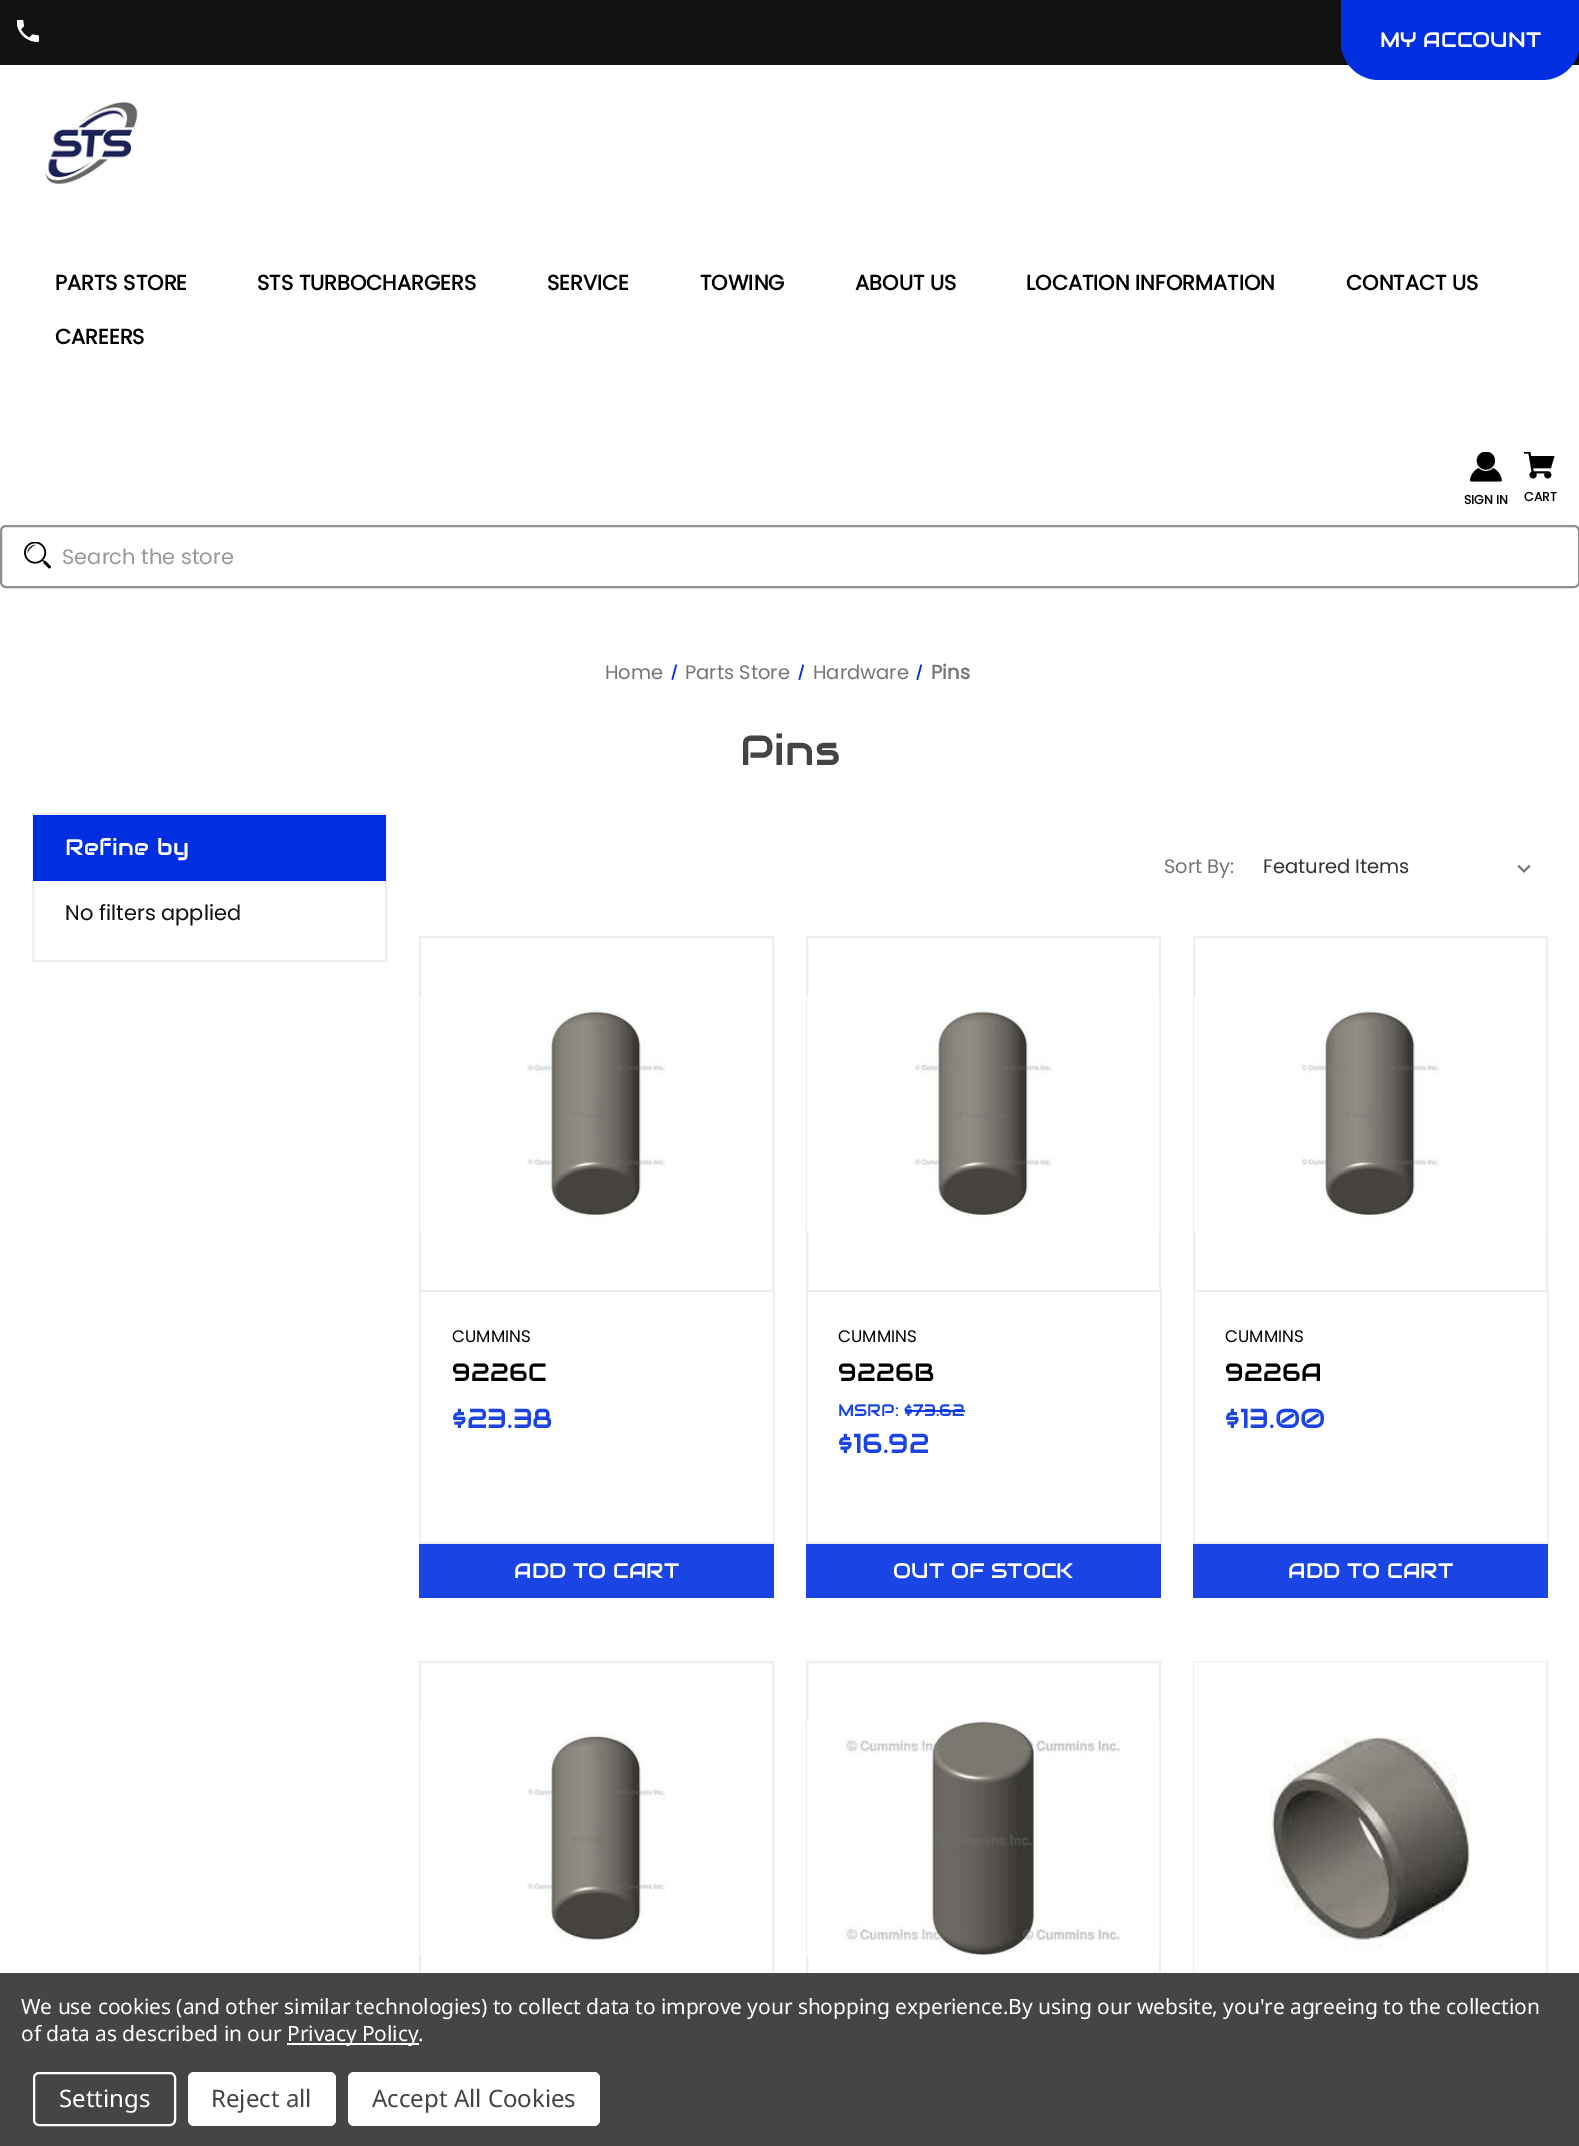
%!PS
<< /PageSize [1579 2146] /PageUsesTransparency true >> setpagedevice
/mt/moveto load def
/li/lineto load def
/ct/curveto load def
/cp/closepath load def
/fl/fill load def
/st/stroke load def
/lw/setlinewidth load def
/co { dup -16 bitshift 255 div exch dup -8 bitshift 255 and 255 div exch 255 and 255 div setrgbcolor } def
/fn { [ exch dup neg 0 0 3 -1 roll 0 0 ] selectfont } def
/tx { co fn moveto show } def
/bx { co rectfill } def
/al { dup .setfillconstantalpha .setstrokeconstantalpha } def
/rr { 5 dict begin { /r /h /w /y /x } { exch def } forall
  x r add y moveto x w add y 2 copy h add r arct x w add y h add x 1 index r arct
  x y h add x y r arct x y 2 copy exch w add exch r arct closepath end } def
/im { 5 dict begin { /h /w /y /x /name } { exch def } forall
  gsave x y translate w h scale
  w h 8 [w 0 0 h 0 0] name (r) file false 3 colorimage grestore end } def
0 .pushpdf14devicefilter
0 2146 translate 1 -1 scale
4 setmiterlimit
0 0 1579 2146 16#FFFFFF bx
0 0 1579 65 16#111111 bx
(media/1.raw) 17 20 22 22 im
16#002FE1 co
1341 0 mt 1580 0 li 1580 42 li 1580 63 1563 80 1542 80 ct 1379 80 li 1358 80 1341 63 1341 42 ct cp fl
(media/2.raw) 45 101 93 83 im
(media/3.raw) 1470 452 32 30 im
(media/4.raw) 1524 452 31 27 im
16#8F8F8F co
2 lw
1 526 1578 61 5 rr st
(media/5.raw) 24 542 27 27 im
16#002FE1 co
675.5 664.5 mt 677 665 li 673 680 li 671.5 679.5 li cp fl
802.5 664.5 mt 804 665 li 800 680 li 798.5 679.5 li cp fl
920.5 664.5 mt 922 665 li 918 680 li 916.5 679.5 li cp fl
16#EEEEEE co
33 814 353 147 rectstroke
33 815 353 66 16#002FE1 bx
(media/6.raw) 1517 864 14 9 im
16#EEEEEE co
420 937 353 354 rectstroke
(media/7.raw) 420 996 353 236 im
773 1292 2 252 16#EEEEEE bx
419 1542 355 2 16#EEEEEE bx
419 1292 2 252 16#EEEEEE bx
419 1544 355 54 16#1A44E4 bx
16#EEEEEE co
807 937 353 354 rectstroke
(media/7.raw) 807 996 353 236 im
1160 1292 2 252 16#EEEEEE bx
806 1542 355 2 16#EEEEEE bx
806 1292 2 252 16#EEEEEE bx
806 1544 355 54 16#1A44E4 bx
16#EEEEEE co
1194 937 353 354 rectstroke
(media/7.raw) 1194 996 353 236 im
1547 1292 2 252 16#EEEEEE bx
1193 1542 355 2 16#EEEEEE bx
1193 1292 2 252 16#EEEEEE bx
1193 1544 355 54 16#1A44E4 bx
16#EEEEEE co
420 1662 353 353 rectstroke
(media/8.raw) 420 1720 353 236 im
807 1662 353 353 rectstroke
(media/9.raw) 807 1720 353 236 im
1194 1662 353 353 rectstroke
(media/10.raw) 1194 1662 353 311 im
0 1973 1579 173 16#454545 bx
287 2043 132 2 16#FFFFFF bx
34 2073 141 52 5 rr st
188 2072 148 54 6 rr fl
348 2072 252 54 6 rr fl
(MY ACCOUNT) 1380 47 /Audiowide-Regular 21 16#FFFFFF tx
(PARTS STORE) 55 290 /Poppins-Bold 21 16#000000 tx
(STS TURBOCHARGERS) 257 290 /Poppins-Bold 21 16#000000 tx
(SERVICE) 547 290 /Poppins-Bold 21 16#000000 tx
(TOWING) 700 290 /Poppins-Bold 21 16#000000 tx
(ABOUT US) 855 290 /Poppins-Bold 21 16#000000 tx
(LOCATION INFORMATION) 1026 290 /Poppins-Bold 21 16#000000 tx
(CONTACT US) 1346 290 /Poppins-Bold 21 16#000000 tx
(CAREERS) 55 344 /Poppins-Bold 21 16#000000 tx
(SIGN IN) 1464 504 /Poppins-Bold 12.5 16#000000 tx
(CART) 1524 501 /Poppins-Bold 12.5 16#000000 tx
(Search the store) 62 564 /Poppins-Regular 21 16#999999 tx
(Home) 605 679 /Poppins-Regular 19.5 16#757575 tx
(Parts Store) 685 679 /Poppins-Regular 19.5 16#757575 tx
(Hardware) 813 679 /Poppins-Regular 19.5 16#757575 tx
(Pins) 931 679 /Poppins-Bold 19.5 16#757575 tx
/Audiowide-Regular 42 fn
16#444444 co
740 765 mt .4 0 (Pins) ashow
/Audiowide-Regular 22.5 fn
16#FFFFFF co
65 855 mt .4 0 (Refine by) ashow
(No filters applied) 65 920 /Poppins-Regular 21 16#111111 tx
(Sort By:) 1164 873 /Poppins-Regular 19.5 16#757575 tx
(Featured Items) 1263 873 /Poppins-Regular 19.5 16#333333 tx
(CUMMINS) 452 1342 /Poppins-Regular 16.75 16#000000 tx
/Audiowide-Regular 25 fn
452 1381 mt .4 0 (9226C) ashow
($23.38) 452 1428 /Audiowide-Regular 27.5 16#1A44E4 tx
(ADD TO CART) 514 1578 /Audiowide-Regular 21 16#FFFFFF tx
(CUMMINS) 838 1342 /Poppins-Regular 16.75 16#000000 tx
/Audiowide-Regular 25 fn
838 1381 mt .4 0 (9226B) ashow
(MSRP: $73.62) 838 1416 /Audiowide-Regular 16.75 16#1A44E4 tx
0.9 al
905 1410 60 2 16#002FE1 bx
1 al
($16.92) 838 1453 /Audiowide-Regular 27.5 16#1A44E4 tx
(OUT OF STOCK) 893 1578 /Audiowide-Regular 21 16#FFFFFF tx
(CUMMINS) 1225 1342 /Poppins-Regular 16.75 16#000000 tx
/Audiowide-Regular 25 fn
1225 1381 mt .4 0 (9226A) ashow
($13.00) 1225 1428 /Audiowide-Regular 27.5 16#1A44E4 tx
(ADD TO CART) 1288 1578 /Audiowide-Regular 21 16#FFFFFF tx
/NotoSans-Regular 21 fn
21 2014 mt -.08 0 (We use cookies \(and other similar technologies\) to collect data to improve your shopping experience.By using our website, you're agreeing to the collection) ashow
21 2041 mt -.08 0 (of data as described in our) ashow
287 2041 mt -.08 0 (Privacy Policy.) ashow
(Settings) 59 2107 /NotoSans-Regular 24 16#FFFFFF tx
(Reject all) 211 2107 /NotoSans-Regular 24 16#444444 tx
(Accept All Cookies) 372 2107 /NotoSans-Regular 24 16#444444 tx
.poppdf14devicefilter showpage
